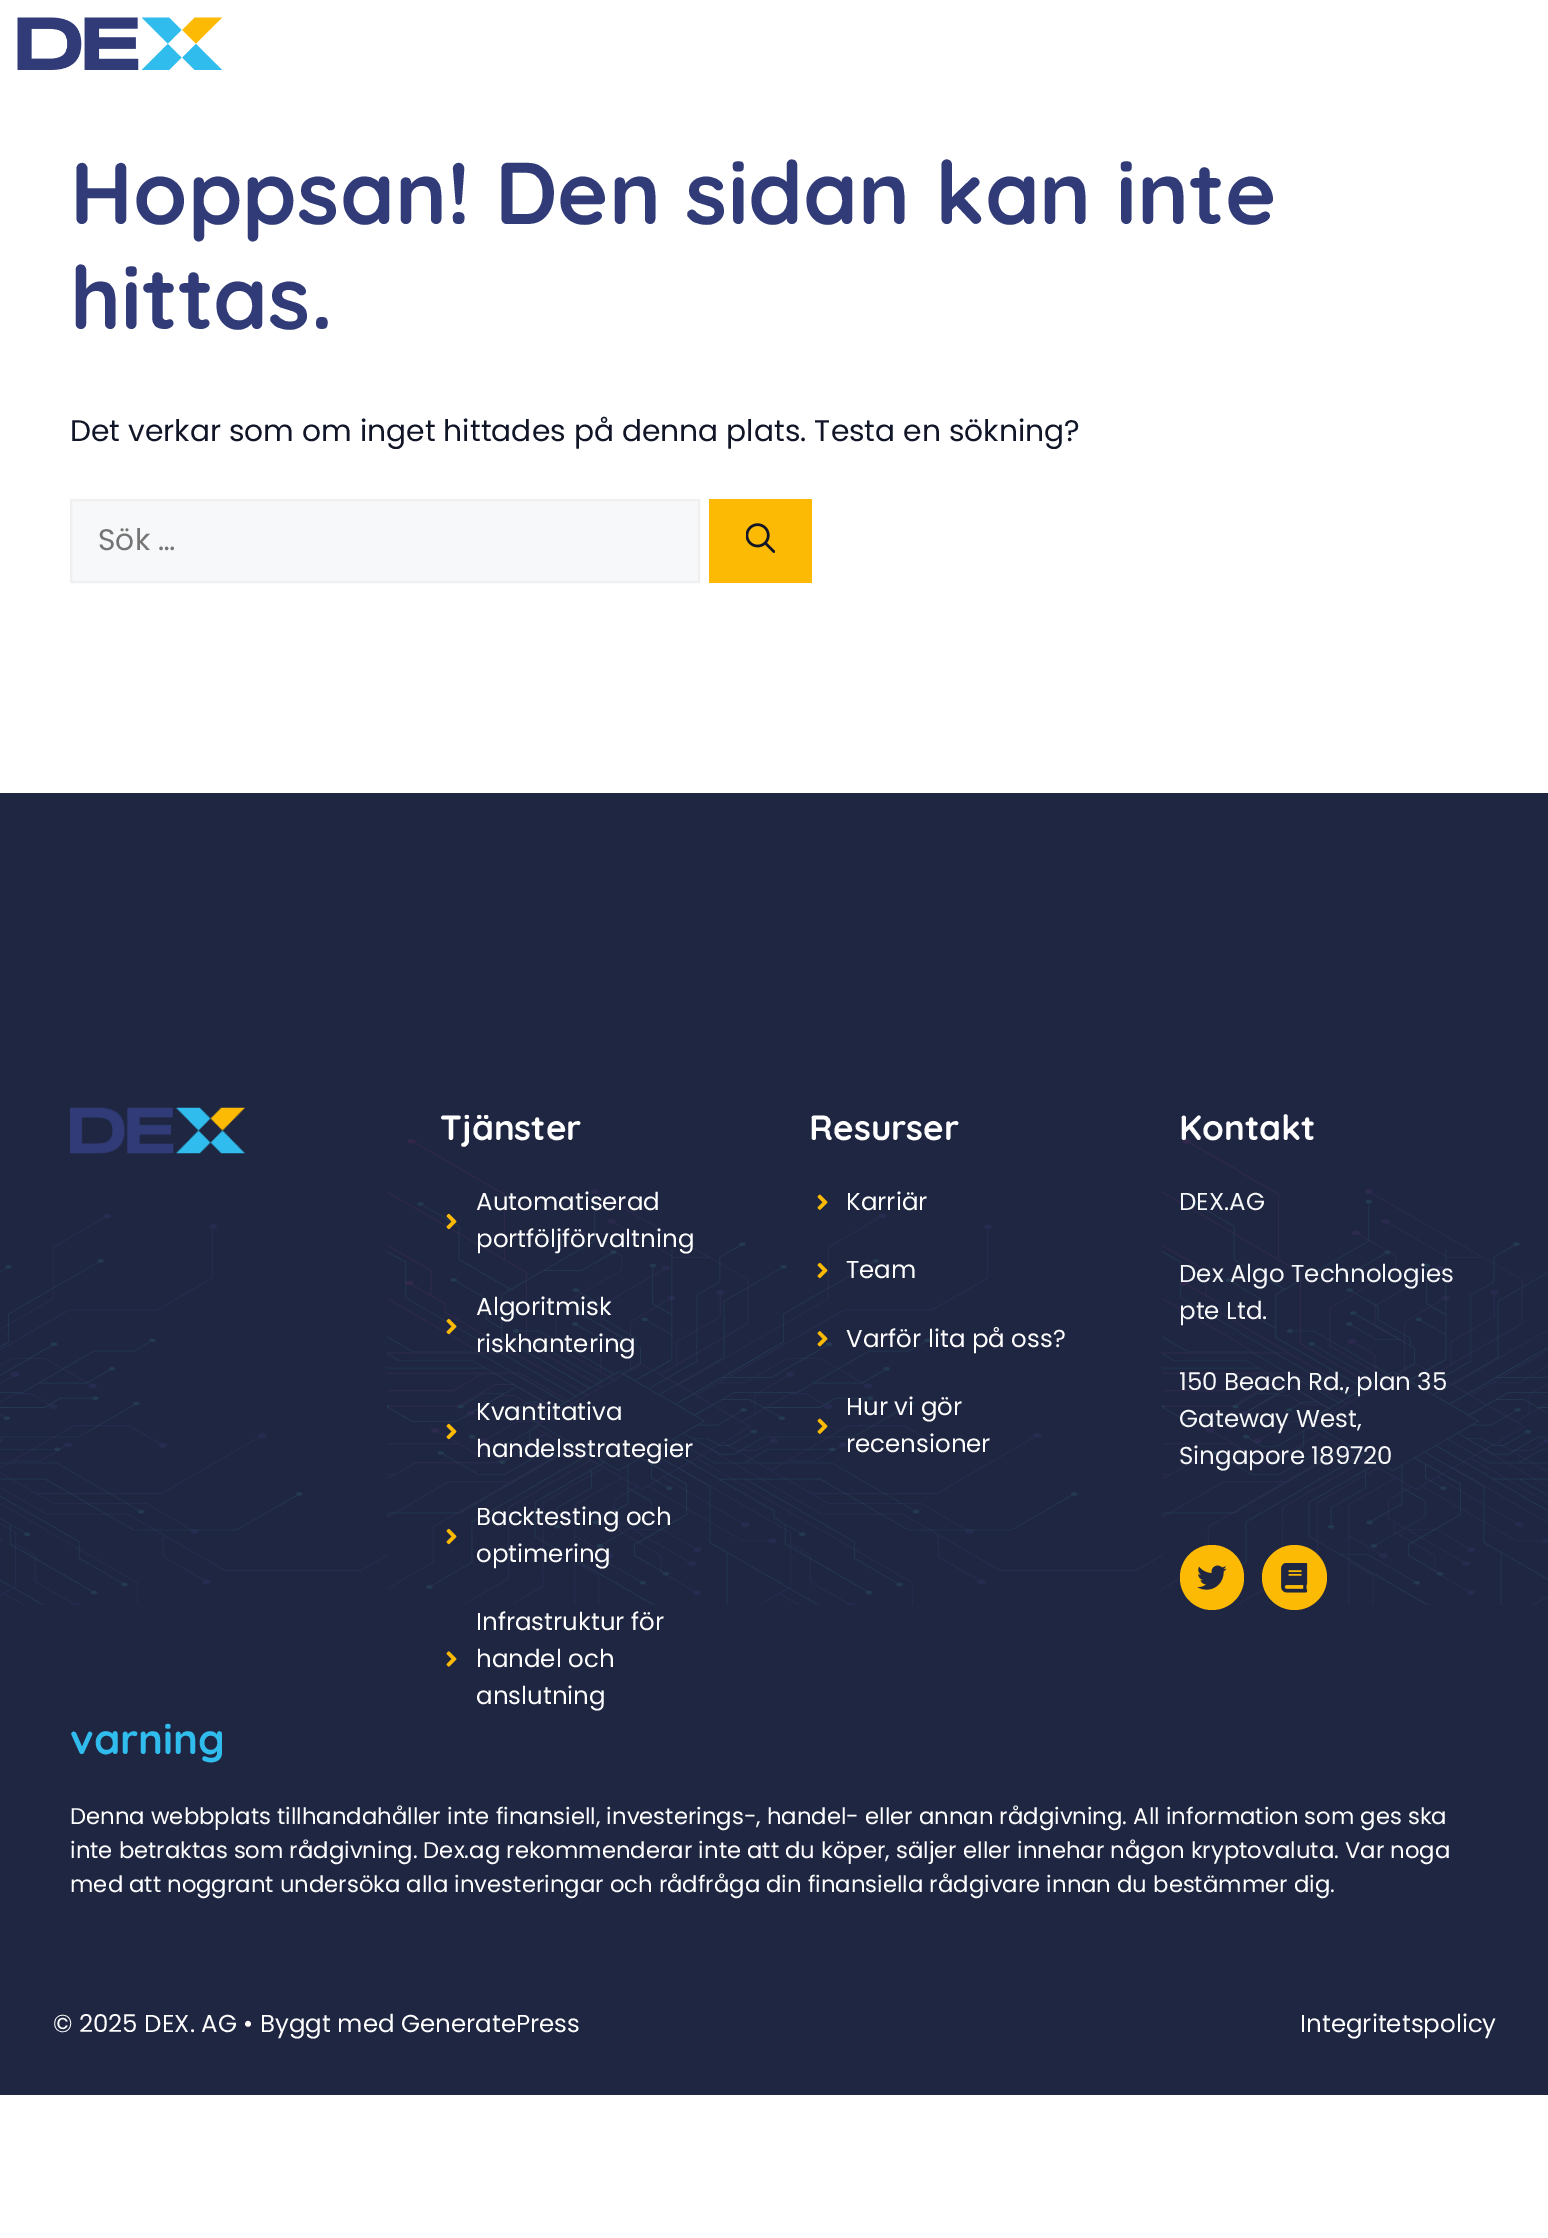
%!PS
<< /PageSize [1548 2238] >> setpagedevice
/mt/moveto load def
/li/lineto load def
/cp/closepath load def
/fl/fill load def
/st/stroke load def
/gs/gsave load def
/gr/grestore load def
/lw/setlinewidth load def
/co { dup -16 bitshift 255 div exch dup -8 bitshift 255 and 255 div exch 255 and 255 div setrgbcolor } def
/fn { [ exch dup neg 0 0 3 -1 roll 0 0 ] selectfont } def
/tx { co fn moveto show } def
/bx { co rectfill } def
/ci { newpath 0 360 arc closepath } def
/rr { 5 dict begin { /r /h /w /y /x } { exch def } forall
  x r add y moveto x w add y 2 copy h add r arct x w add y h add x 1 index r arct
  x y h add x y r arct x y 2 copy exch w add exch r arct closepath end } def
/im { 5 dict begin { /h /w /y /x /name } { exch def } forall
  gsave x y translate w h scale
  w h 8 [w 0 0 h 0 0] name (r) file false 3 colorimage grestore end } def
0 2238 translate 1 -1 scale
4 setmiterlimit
0 0 1548 2238 16#FFFFFF bx
(media/1.raw) 17 17 206 53 im
16#F7F8F9 co
71 500 mt 699 500 li 699 582 li 71 582 li cp gs fl gr
16#F0F0F0 co
2 lw
st
709 499 103 84 16#FCBA04 bx
(media/2.raw) 746 523 29 30 im
0 793 1548 1302 16#1F2641 bx
(media/3.raw) 0 1139 1548 466 im
(media/4.raw) 70 1107 175 47 im
(media/5.raw) 446 1213 11 17 im
(media/6.raw) 446 1318 11 17 im
(media/7.raw) 446 1423 11 17 im
(media/8.raw) 446 1528 11 17 im
(media/9.raw) 446 1651 11 16 im
(media/10.raw) 817 1194 11 16 im
(media/11.raw) 817 1262 11 17 im
(media/12.raw) 817 1331 11 16 im
(media/10.raw) 817 1418 11 16 im
16#FCBA04 co
1180 1545 64 65 32 rr fl
(media/13.raw) 1197 1565 30 25 im
1294.5 1577.5 32.5 ci fl
(media/14.raw) 1281 1563 27 30 im
(Hoppsan! Den sidan kan inte) 70 224 /Quicksand-Bold 87.5 16#313B77 tx
(hittas.) 70 329 /Quicksand-Bold 87.5 16#313B77 tx
(Det verkar som om inget hittades på denna plats. Testa en sökning?) 70 441 /Poppins-Regular 29.75 16#101528 tx
(Sök …) 98 550 /Poppins-Regular 29.75 16#757575 tx
(Tjänster) 440 1140 /Quicksand-Bold 35 16#FFFFFF tx
(Automatiserad) 476 1210 /Poppins-Regular 24.5 16#FFFFFF tx
(portföljförvaltning) 476 1247 /Poppins-Regular 24.5 16#FFFFFF tx
(Algoritmisk) 476 1315 /Poppins-Regular 24.5 16#FFFFFF tx
(riskhantering) 476 1352 /Poppins-Regular 24.5 16#FFFFFF tx
(Kvantitativa) 476 1420 /Poppins-Regular 24.5 16#FFFFFF tx
(handelsstrategier) 476 1457 /Poppins-Regular 24.5 16#FFFFFF tx
(Backtesting och) 476 1525 /Poppins-Regular 24.5 16#FFFFFF tx
(optimering) 476 1562 /Poppins-Regular 24.5 16#FFFFFF tx
(Infrastruktur för) 476 1630 /Poppins-Regular 24.5 16#FFFFFF tx
(handel och) 476 1667 /Poppins-Regular 24.5 16#FFFFFF tx
(anslutning) 476 1704 /Poppins-Regular 24.5 16#FFFFFF tx
(Resurser) 809 1140 /Quicksand-Bold 35 16#FFFFFF tx
(Karriär) 846 1210 /Poppins-Regular 24.5 16#FFFFFF tx
(Team) 846 1278 /Poppins-Regular 24.5 16#FFFFFF tx
(Varför lita på oss?) 846 1347 /Poppins-Regular 24.5 16#FFFFFF tx
(Hur vi gör) 846 1415 /Poppins-Regular 24.5 16#FFFFFF tx
(recensioner) 846 1452 /Poppins-Regular 24.5 16#FFFFFF tx
(Kontakt) 1179 1140 /Quicksand-Bold 35 16#FFFFFF tx
(DEX.AG) 1179 1210 /Poppins-Regular 24.5 16#F7F8F9 tx
(Dex Algo Technologies) 1179 1282 /Poppins-Regular 24.5 16#F7F8F9 tx
(pte Ltd.) 1179 1319 /Poppins-Regular 24.5 16#F7F8F9 tx
(150 Beach Rd., plan 35) 1179 1390 /Poppins-Regular 24.5 16#F7F8F9 tx
(Gateway West,) 1179 1427 /Poppins-Regular 24.5 16#F7F8F9 tx
(Singapore 189720) 1179 1464 /Poppins-Regular 24.5 16#F7F8F9 tx
(varning) 70 1754 /Quicksand-Bold 42 16#30BCED tx
(Denna webbplats tillhandahåller inte finansiell, investerings-, handel- eller annan rådgivning. All information som ges ska) 70 1824 /Poppins-Regular 22.75 16#FFFFFF tx
(inte betraktas som rådgivning. Dex.ag rekommenderar inte att du köper, säljer eller innehar någon kryptovaluta. Var noga) 70 1858 /Poppins-Regular 22.75 16#FFFFFF tx
(med att noggrant undersöka alla investeringar och rådfråga din finansiella rådgivare innan du bestämmer dig.) 70 1892 /Poppins-Regular 22.75 16#FFFFFF tx
(© 2025 DEX. AG • Byggt med GeneratePress) 53 2032 /Poppins-Regular 24.5 16#FFFFFF tx
(Integritetspolicy) 1300 2032 /Poppins-Regular 24.5 16#FFFFFF tx
showpage
